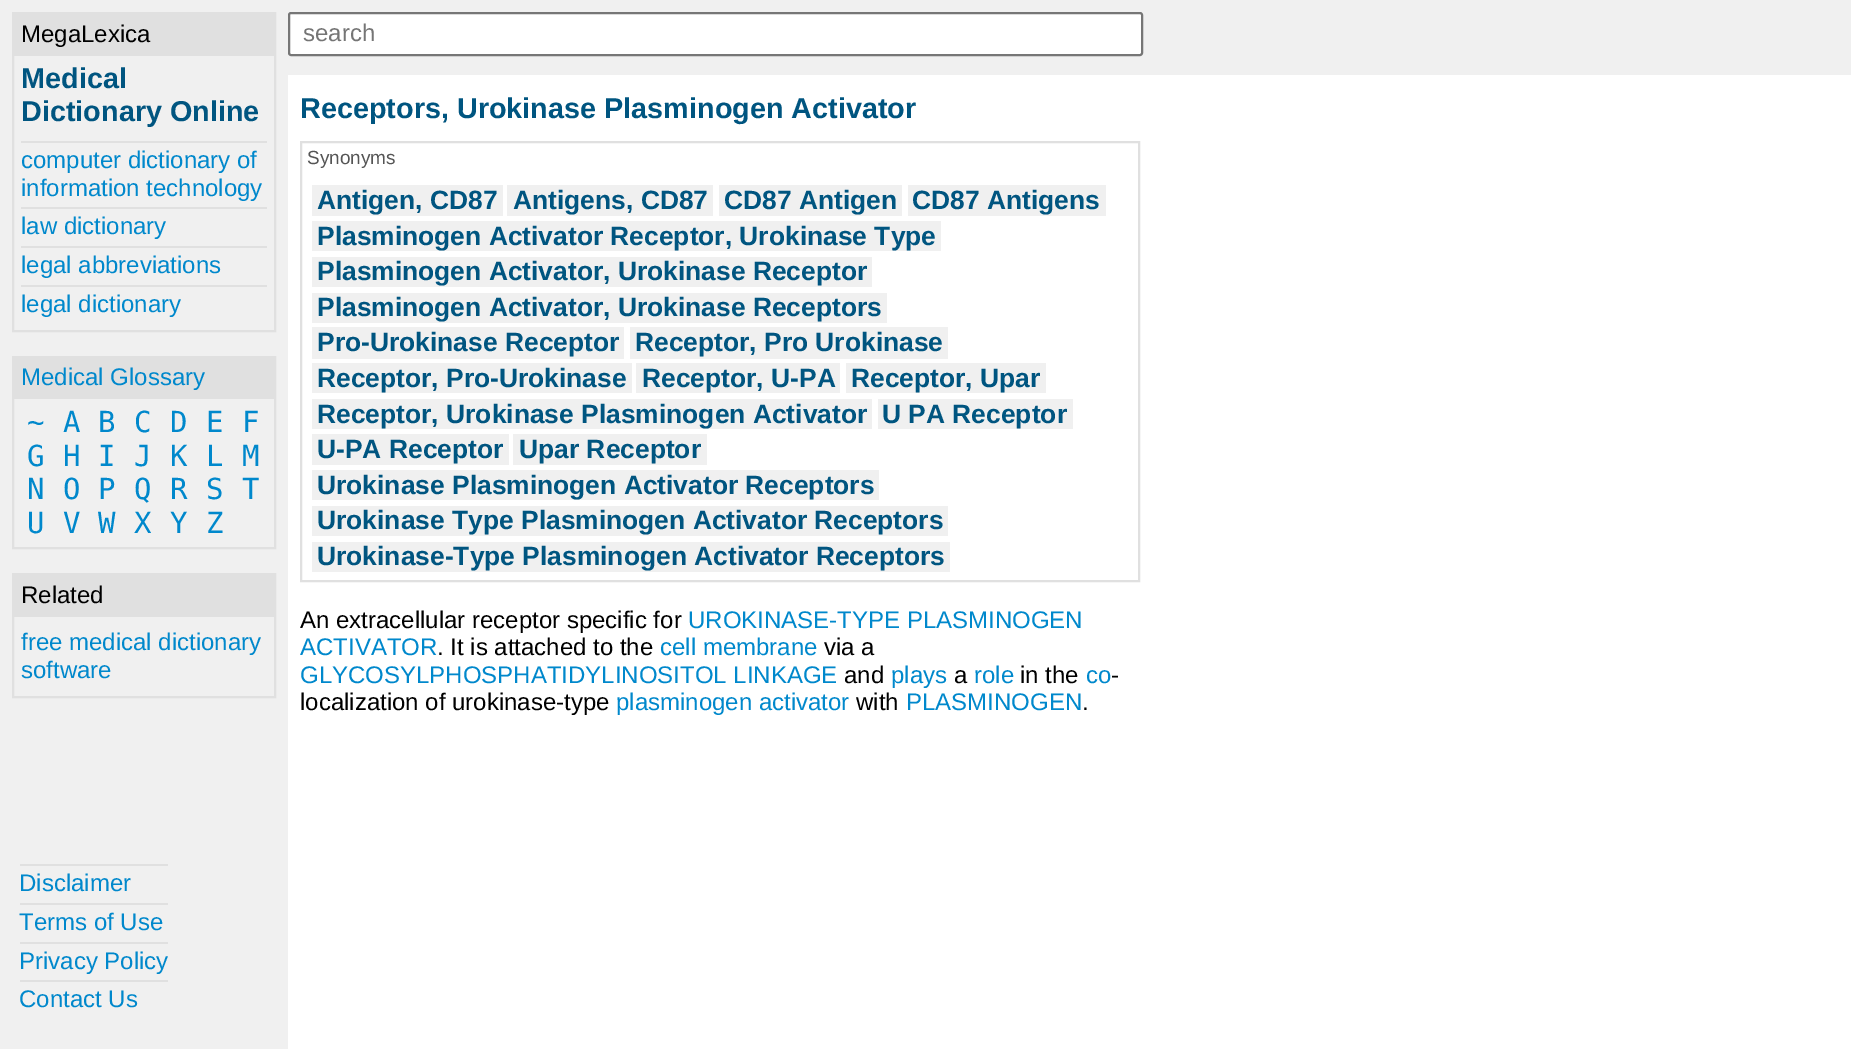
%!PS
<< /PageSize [1851 1049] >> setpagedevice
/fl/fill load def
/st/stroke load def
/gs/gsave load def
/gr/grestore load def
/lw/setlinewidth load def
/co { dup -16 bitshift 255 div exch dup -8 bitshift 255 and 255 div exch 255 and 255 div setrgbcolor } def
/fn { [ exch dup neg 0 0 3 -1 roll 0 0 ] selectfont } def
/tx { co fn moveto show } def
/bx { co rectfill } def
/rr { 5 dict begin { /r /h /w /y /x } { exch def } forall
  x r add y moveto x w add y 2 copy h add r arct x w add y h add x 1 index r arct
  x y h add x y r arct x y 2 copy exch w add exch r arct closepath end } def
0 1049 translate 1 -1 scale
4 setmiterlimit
0 0 1851 1049 16#FFFFFF bx
0 0 288 1049 16#F0F0F0 bx
16#E0E0E0 co
2 lw
13 13 262 318 rectstroke
14 14 260 42 16#E0E0E0 bx
21 141 246 2 16#E0E0E0 bx
21 207 246 2 16#E0E0E0 bx
21 246 246 2 16#E0E0E0 bx
21 285 246 2 16#E0E0E0 bx
13 357 262 191 rectstroke
14 358 260 41 16#E0E0E0 bx
13 574 262 123 rectstroke
14 575 260 42 16#E0E0E0 bx
20 864 148 2 16#E0E0E0 bx
20 903 148 2 16#E0E0E0 bx
20 942 148 2 16#E0E0E0 bx
20 980 148 2 16#E0E0E0 bx
288 0 1563 75 16#F0F0F0 bx
16#FFFFFF co
289 13 853 42 2 rr gs fl gr
16#767676 co
st
16#E0E0E0 co
301 142 838 439 rectstroke
312 185 191 31 16#F0F0F0 bx
507 185 206 31 16#F0F0F0 bx
719 185 183 31 16#F0F0F0 bx
908 185 198 31 16#F0F0F0 bx
312 221 629 30 16#F0F0F0 bx
312 257 560 30 16#F0F0F0 bx
312 293 575 30 16#F0F0F0 bx
312 327 312 32 16#F0F0F0 bx
630 327 318 32 16#F0F0F0 bx
312 363 320 30 16#F0F0F0 bx
636 363 204 30 16#F0F0F0 bx
846 363 200 30 16#F0F0F0 bx
312 399 560 30 16#F0F0F0 bx
878 399 195 30 16#F0F0F0 bx
312 434 197 31 16#F0F0F0 bx
513 434 194 31 16#F0F0F0 bx
312 470 567 30 16#F0F0F0 bx
312 506 636 30 16#F0F0F0 bx
312 542 638 30 16#F0F0F0 bx
(MegaLexica) 21 42 /LiberationSans-Regular 24 16#000000 tx
(Medical) 21 88 /LiberationSans-Bold 28.8 16#005580 tx
(Dictionary Online) 21 121 /LiberationSans-Bold 28.8 16#005580 tx
(computer dictionary of) 21 168 /LiberationSans-Regular 24 16#0088CC tx
(information technology) 21 196 /LiberationSans-Regular 24 16#0088CC tx
(law dictionary) 21 234 /LiberationSans-Regular 24 16#0088CC tx
(legal abbreviations) 21 273 /LiberationSans-Regular 24 16#0088CC tx
(legal dictionary) 21 312 /LiberationSans-Regular 24 16#0088CC tx
(Medical Glossary) 21 385 /LiberationSans-Regular 24 16#0088CC tx
(~) 27 432 /DejaVuSansMono-Regular 29 16#0088CC tx
(A) 63 432 /DejaVuSansMono-Regular 29 16#0088CC tx
(B) 98 432 /DejaVuSansMono-Regular 29 16#0088CC tx
(C) 134 432 /DejaVuSansMono-Regular 29 16#0088CC tx
(D) 170 432 /DejaVuSansMono-Regular 29 16#0088CC tx
(E) 206 432 /DejaVuSansMono-Regular 29 16#0088CC tx
(F) 242 432 /DejaVuSansMono-Regular 29 16#0088CC tx
(G) 27 466 /DejaVuSansMono-Regular 29 16#0088CC tx
(H) 63 466 /DejaVuSansMono-Regular 29 16#0088CC tx
(I) 98 466 /DejaVuSansMono-Regular 29 16#0088CC tx
(J) 134 466 /DejaVuSansMono-Regular 29 16#0088CC tx
(K) 170 466 /DejaVuSansMono-Regular 29 16#0088CC tx
(L) 206 466 /DejaVuSansMono-Regular 29 16#0088CC tx
(M) 242 466 /DejaVuSansMono-Regular 29 16#0088CC tx
(N) 27 499 /DejaVuSansMono-Regular 29 16#0088CC tx
(O) 63 499 /DejaVuSansMono-Regular 29 16#0088CC tx
(P) 98 499 /DejaVuSansMono-Regular 29 16#0088CC tx
(Q) 134 499 /DejaVuSansMono-Regular 29 16#0088CC tx
(R) 170 499 /DejaVuSansMono-Regular 29 16#0088CC tx
(S) 206 499 /DejaVuSansMono-Regular 29 16#0088CC tx
(T) 242 499 /DejaVuSansMono-Regular 29 16#0088CC tx
(U) 27 533 /DejaVuSansMono-Regular 29 16#0088CC tx
(V) 63 533 /DejaVuSansMono-Regular 29 16#0088CC tx
(W) 98 533 /DejaVuSansMono-Regular 29 16#0088CC tx
(X) 134 533 /DejaVuSansMono-Regular 29 16#0088CC tx
(Y) 170 533 /DejaVuSansMono-Regular 29 16#0088CC tx
(Z) 206 533 /DejaVuSansMono-Regular 29 16#0088CC tx
(Related) 21 603 /LiberationSans-Regular 24 16#000000 tx
(free medical dictionary) 21 650 /LiberationSans-Regular 24 16#0088CC tx
(software) 21 678 /LiberationSans-Regular 24 16#0088CC tx
(Disclaimer) 19 891 /LiberationSans-Regular 24 16#0088CC tx
(Terms of Use) 19 930 /LiberationSans-Regular 24 16#0088CC tx
(Privacy Policy) 19 969 /LiberationSans-Regular 24 16#0088CC tx
(Contact Us) 19 1007 /LiberationSans-Regular 24 16#0088CC tx
(search) 303 41 /LiberationSans-Regular 24 16#757575 tx
(Receptors, Urokinase Plasminogen Activator) 300 118 /LiberationSans-Bold 28.8 16#005580 tx
(Synonyms) 307 164 /LiberationSans-Regular 19 16#555555 tx
(Antigen, CD87) 317 209 /LiberationSans-Bold 26.4 16#005580 tx
(Antigens, CD87) 513 209 /LiberationSans-Bold 26.4 16#005580 tx
(CD87 Antigen) 724 209 /LiberationSans-Bold 26.4 16#005580 tx
(CD87 Antigens) 912 209 /LiberationSans-Bold 26.4 16#005580 tx
(Plasminogen Activator Receptor, Urokinase Type) 317 245 /LiberationSans-Bold 26.4 16#005580 tx
(Plasminogen Activator, Urokinase Receptor) 317 280 /LiberationSans-Bold 26.4 16#005580 tx
(Plasminogen Activator, Urokinase Receptors) 317 316 /LiberationSans-Bold 26.4 16#005580 tx
(Pro-Urokinase Receptor) 317 351 /LiberationSans-Bold 26.4 16#005580 tx
(Receptor, Pro Urokinase) 635 351 /LiberationSans-Bold 26.4 16#005580 tx
(Receptor, Pro-Urokinase) 317 387 /LiberationSans-Bold 26.4 16#005580 tx
(Receptor, U-PA) 642 387 /LiberationSans-Bold 26.4 16#005580 tx
(Receptor, Upar) 851 387 /LiberationSans-Bold 26.4 16#005580 tx
(Receptor, Urokinase Plasminogen Activator) 317 423 /LiberationSans-Bold 26.4 16#005580 tx
(U PA Receptor) 882 423 /LiberationSans-Bold 26.4 16#005580 tx
(U-PA Receptor) 317 458 /LiberationSans-Bold 26.4 16#005580 tx
(Upar Receptor) 519 458 /LiberationSans-Bold 26.4 16#005580 tx
(Urokinase Plasminogen Activator Receptors) 317 494 /LiberationSans-Bold 26.4 16#005580 tx
(Urokinase Type Plasminogen Activator Receptors) 317 529 /LiberationSans-Bold 26.4 16#005580 tx
(Urokinase-Type Plasminogen Activator Receptors) 317 565 /LiberationSans-Bold 26.4 16#005580 tx
(An extracellular receptor specific for) 300 628 /LiberationSans-Regular 24 16#000000 tx
(UROKINASE-TYPE PLASMINOGEN) 688 628 /LiberationSans-Regular 24 16#0088CC tx
(ACTIVATOR) 300 655 /LiberationSans-Regular 24 16#0088CC tx
(. It is attached to the) 437 655 /LiberationSans-Regular 24 16#000000 tx
(cell membrane) 660 655 /LiberationSans-Regular 24 16#0088CC tx
(via a) 824 655 /LiberationSans-Regular 24 16#000000 tx
(GLYCOSYLPHOSPHATIDYLINOSITOL LINKAGE) 300 683 /LiberationSans-Regular 24 16#0088CC tx
(and) 844 683 /LiberationSans-Regular 24 16#000000 tx
(plays) 891 683 /LiberationSans-Regular 24 16#0088CC tx
(a) 954 683 /LiberationSans-Regular 24 16#000000 tx
(role) 974 683 /LiberationSans-Regular 24 16#0088CC tx
(in the) 1020 683 /LiberationSans-Regular 24 16#000000 tx
(co) 1086 683 /LiberationSans-Regular 24 16#0088CC tx
(-) 1111 683 /LiberationSans-Regular 24 16#000000 tx
(localization of urokinase-type) 300 710 /LiberationSans-Regular 24 16#000000 tx
(plasminogen activator) 616 710 /LiberationSans-Regular 24 16#0088CC tx
(with) 856 710 /LiberationSans-Regular 24 16#000000 tx
(PLASMINOGEN) 906 710 /LiberationSans-Regular 24 16#0088CC tx
(.) 1082 710 /LiberationSans-Regular 24 16#000000 tx
showpage
